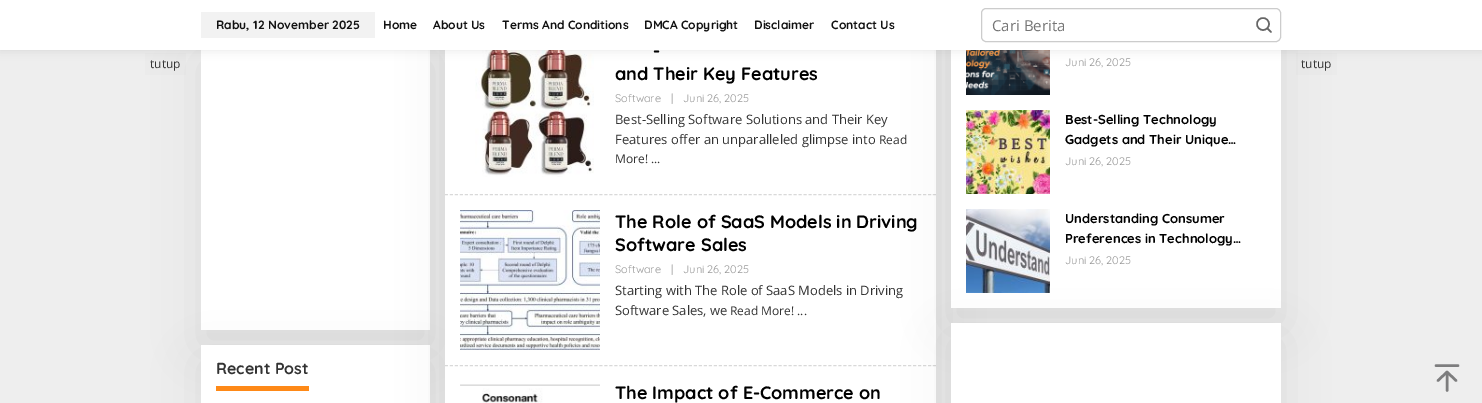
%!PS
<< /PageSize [1482 403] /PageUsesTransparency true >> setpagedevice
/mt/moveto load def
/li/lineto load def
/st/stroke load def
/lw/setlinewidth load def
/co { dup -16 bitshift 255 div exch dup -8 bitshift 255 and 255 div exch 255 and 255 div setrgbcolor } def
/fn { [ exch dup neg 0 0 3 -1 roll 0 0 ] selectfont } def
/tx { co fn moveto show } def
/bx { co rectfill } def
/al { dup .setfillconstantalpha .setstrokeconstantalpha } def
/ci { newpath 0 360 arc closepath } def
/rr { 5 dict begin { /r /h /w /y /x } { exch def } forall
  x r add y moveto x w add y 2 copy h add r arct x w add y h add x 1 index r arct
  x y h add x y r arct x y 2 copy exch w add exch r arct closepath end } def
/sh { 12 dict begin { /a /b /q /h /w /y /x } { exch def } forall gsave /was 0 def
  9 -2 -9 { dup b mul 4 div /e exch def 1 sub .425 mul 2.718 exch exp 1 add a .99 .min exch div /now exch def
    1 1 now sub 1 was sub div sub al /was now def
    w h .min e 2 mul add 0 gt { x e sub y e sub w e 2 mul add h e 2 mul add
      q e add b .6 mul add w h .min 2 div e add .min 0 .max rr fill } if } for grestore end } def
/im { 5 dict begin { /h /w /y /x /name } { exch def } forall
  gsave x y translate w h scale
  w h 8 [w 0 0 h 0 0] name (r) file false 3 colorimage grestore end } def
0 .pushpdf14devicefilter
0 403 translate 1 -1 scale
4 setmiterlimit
0 0 1482 403 16#EEEEEE bx
145 53 41 22 16#EBEBEB bx
16#000000 co
201 61 229 285 0 22.5 .07 sh
201 50 229 280 16#FFFFFF bx
16#000000 co
201 361 229 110 0 22.5 .07 sh
201 345 229 58 16#FFFFFF bx
16#000000 co
445 -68 491 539 0 22.5 .07 sh
445 50 491 353 16#FFFFFF bx
(media/1.raw) 475 50 119 127 im
16#D9D9D9 co
[3 1.98] 0 setdash
445 194.5 mt 936 194.5 li st
445 365.5 mt 936 365.5 li st
1296 53 41 22 16#EBEBEB bx
16#000000 co
951 -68 330 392 0 22.5 .07 sh
951 50 330 258 16#FFFFFF bx
(media/4.raw) 966 50 84 45 im
16#000000 co
0 0 1482 50 0 5 .1 sh
0 0 1482 50 16#FFFFFF bx
201 12 174 26 16#F2F2F2 bx
16#CCCCCC co
[] 0 setdash
981.5 8.5 299 33 4.5 rr st
16#666666 co
1.5 lw
1263 24 6 ci st
1 setlinecap
1 setlinejoin
1271 32 mt 1267.5 28.5 li st
216 386 93 5 16#FE8917 bx
(media/2.raw) 460 210 140 140 im
(media/3.raw) 460 384 140 19 im
(media/5.raw) 966 110 84 84 im
16#000000 co
951 339 330 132 0 22.5 .07 sh
(media/6.raw) 966 209 84 84 im
951 323 330 80 16#FFFFFF bx
16#7D7D7E co
2.5 lw
1447 390.5 mt 1447 372 li 1438 380.5 mt 1447 372 li 1456 380.5 li 1436 365.5 mt 1458 365.5 li st
(Rabu, 12 November 2025) 216 29 /Quicksand-Bold 12 16#111111 tx
(Home) 383 29 /Quicksand-Bold 12 16#111111 tx
(About Us) 433 29 /Quicksand-Bold 12 16#111111 tx
(Terms And Conditions) 502 29 /Quicksand-Bold 12 16#111111 tx
(DMCA Copyright) 644 29 /Quicksand-Bold 12 16#111111 tx
(Disclaimer) 754 29 /Quicksand-Bold 12 16#111111 tx
(Contact Us) 831 29 /Quicksand-Bold 12 16#111111 tx
(Cari Berita) 992 31 /OpenSans-Regular 15 16#757575 tx
(tutup) 150 68 /OpenSans-Regular 12 16#333333 tx
(Recent Post) 216 374 /Quicksand-Bold 16 16#333333 tx
(-) 653 57 /Quicksand-Bold 18 16#000000 tx
(and Their Key Features) 615 80 /Quicksand-Bold 18 16#000000 tx
(Software) 615 102 /Quicksand-Regular 11 16#999999 tx
(|) 671 102 /Quicksand-Regular 11 16#999999 tx
(Juni 26, 2025) 683 102 /Quicksand-Regular 11 16#999999 tx
(Best-Selling Software Solutions and Their Key) 615 124 /OpenSans-Regular 13 16#333333 tx
(Features offer an unparalleled glimpse into) 615 144 /OpenSans-Regular 13 16#333333 tx
(Read) 879 144 /OpenSans-Regular 12 16#333333 tx
(More! ...) 615 163 /OpenSans-Regular 12 16#333333 tx
(The Role of SaaS Models in Driving) 615 228 /Quicksand-Bold 18 16#000000 tx
(Software Sales) 615 251 /Quicksand-Bold 18 16#000000 tx
(Software) 615 273 /Quicksand-Regular 11 16#999999 tx
(|) 671 273 /Quicksand-Regular 11 16#999999 tx
(Juni 26, 2025) 683 273 /Quicksand-Regular 11 16#999999 tx
(Starting with The Role of SaaS Models in Driving) 615 295 /OpenSans-Regular 13 16#333333 tx
(Software Sales, we) 615 315 /OpenSans-Regular 13 16#333333 tx
(Read More! ...) 730 315 /OpenSans-Regular 12 16#333333 tx
(The Impact of E-Commerce on) 615 399 /Quicksand-Bold 18 16#000000 tx
(Juni 26, 2025) 1065 66 /Quicksand-Regular 11 16#999999 tx
(Best-Selling Technology) 1065 124 /Quicksand-Bold 13 16#000000 tx
(Gadgets and Their Unique…) 1065 144 /Quicksand-Bold 13 16#000000 tx
(Juni 26, 2025) 1065 165 /Quicksand-Regular 11 16#999999 tx
(Understanding Consumer) 1065 223 /Quicksand-Bold 13 16#000000 tx
(Preferences in Technology…) 1065 243 /Quicksand-Bold 13 16#000000 tx
(Juni 26, 2025) 1065 264 /Quicksand-Regular 11 16#999999 tx
(tutup) 1301 68 /OpenSans-Regular 12 16#333333 tx
.poppdf14devicefilter showpage
